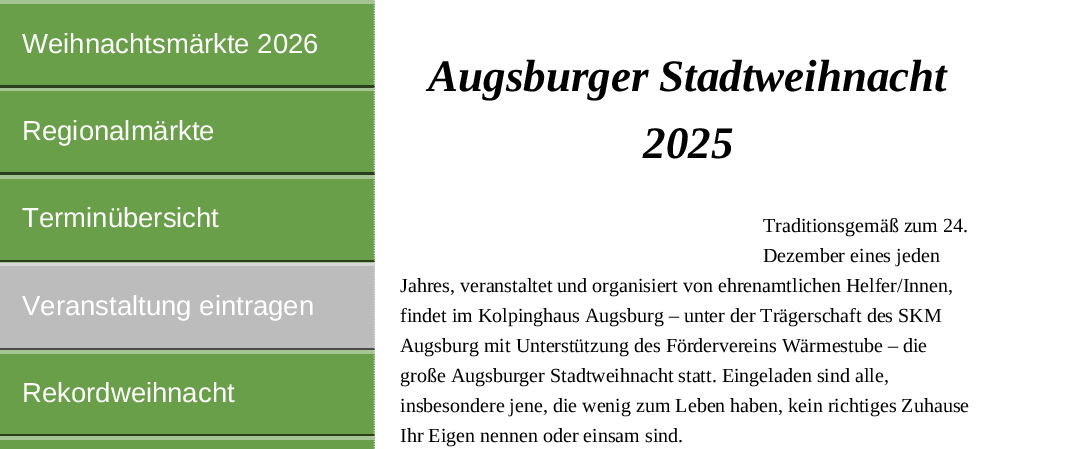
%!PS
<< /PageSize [1089 449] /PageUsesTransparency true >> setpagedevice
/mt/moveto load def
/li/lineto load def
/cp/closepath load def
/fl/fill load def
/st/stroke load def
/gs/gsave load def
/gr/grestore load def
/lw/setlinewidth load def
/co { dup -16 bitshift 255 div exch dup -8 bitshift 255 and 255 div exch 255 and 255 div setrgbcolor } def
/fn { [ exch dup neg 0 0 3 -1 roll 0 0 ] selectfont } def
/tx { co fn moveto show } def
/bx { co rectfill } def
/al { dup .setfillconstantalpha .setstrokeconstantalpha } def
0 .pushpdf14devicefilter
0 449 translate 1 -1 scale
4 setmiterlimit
0 0 1089 449 16#FFFFFF bx
0 1 375 448 16#689F48 bx
16#A4C591 co
0 0 mt 375 0 li 374 4 li 0 4 li cp fl
gs
0 0 375 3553 rectclip
16#DCDCDC co
1.2 lw
[1.25 1.25] 0 setdash
374.5 0 mt 374.5 87.5 li st
gr
0.6 al
16#000000 co
375 88 mt 0 88 li 0 85 li 374 85 li cp fl
1 al
16#A4C591 co
0 88 mt 375 88 li 374 91 li 0 91 li cp fl
gs
0 0 375 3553 rectclip
16#DCDCDC co
1.2 lw
[1.25 1.25] 0 setdash
374.5 87.5 mt 374.5 175 li st
gr
0.6 al
16#000000 co
375 175 mt 0 175 li 0 172 li 374 172 li cp fl
1 al
16#A4C591 co
0 175 mt 375 175 li 374 179 li 0 179 li cp fl
gs
0 0 375 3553 rectclip
16#DCDCDC co
1.2 lw
[1.25 1.25] 0 setdash
374.5 175 mt 374.5 262.5 li st
gr
0.6 al
16#000000 co
375 262 mt 0 262 li 0 260 li 374 260 li cp fl
1 al
0 263 375 87 16#BCBCBC bx
0.4 al
16#FFFFFF co
0 262 mt 375 262 li 374 266 li 0 266 li cp fl
gs
0 0 375 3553 rectclip
1 al
16#DCDCDC co
1.2 lw
[1.25 1.25] 0 setdash
374.5 262.5 mt 374.5 350 li st
gr
1 al
16#4B4B4B co
375 350 mt 0 350 li 0 348 li 374 348 li cp fl
16#A4C591 co
0 350 mt 375 350 li 374 354 li 0 354 li cp fl
gs
0 0 375 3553 rectclip
16#DCDCDC co
1.2 lw
[1.25 1.25] 0 setdash
374.5 350 mt 374.5 436 li st
gr
0.6 al
16#000000 co
375 436 mt 0 436 li 0 434 li 374 434 li cp fl
1 al
16#A4C591 co
0 436 mt 375 436 li 374 440 li 0 440 li cp fl
gs
0 0 375 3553 rectclip
16#DCDCDC co
1.2 lw
[1.25 1.25] 0 setdash
374.5 436 mt 374.5 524 li st
gr
(Weihnachtsmärkte 2026) 22 53 /LiberationSans-Regular 27.5 16#FFFFFF tx
(Regionalmärkte) 22 140 /LiberationSans-Regular 27.5 16#FFFFFF tx
(Terminübersicht) 22 227 /LiberationSans-Regular 27.5 16#FFFFFF tx
(Veranstaltung eintragen) 22 315 /LiberationSans-Regular 27.5 16#FFFFFF tx
(Rekordweihnacht) 22 402 /LiberationSans-Regular 27.5 16#FFFFFF tx
(Augsburger Stadtweihnacht) 428 91 /LiberationSerif-BoldItalic 45 16#000000 tx
(2025) 643 158 /LiberationSerif-BoldItalic 45 16#000000 tx
(Traditionsgemäß zum 24.) 763 232 /LiberationSerif-Regular 20 16#000000 tx
(Dezember eines jeden) 763 262 /LiberationSerif-Regular 20 16#000000 tx
(Jahres, veranstaltet und organisiert von ehrenamtlichen Helfer/Innen,) 400 292 /LiberationSerif-Regular 20 16#000000 tx
(findet im Kolpinghaus Augsburg – unter der Trägerschaft des SKM) 400 322 /LiberationSerif-Regular 20 16#000000 tx
(Augsburg mit Unterstützung des Fördervereins Wärmestube – die) 400 352 /LiberationSerif-Regular 20 16#000000 tx
(große Augsburger Stadtweihnacht statt. Eingeladen sind alle,) 400 382 /LiberationSerif-Regular 20 16#000000 tx
(insbesondere jene, die wenig zum Leben haben, kein richtiges Zuhause) 400 412 /LiberationSerif-Regular 20 16#000000 tx
(Ihr Eigen nennen oder einsam sind.) 400 442 /LiberationSerif-Regular 20 16#000000 tx
.poppdf14devicefilter showpage
